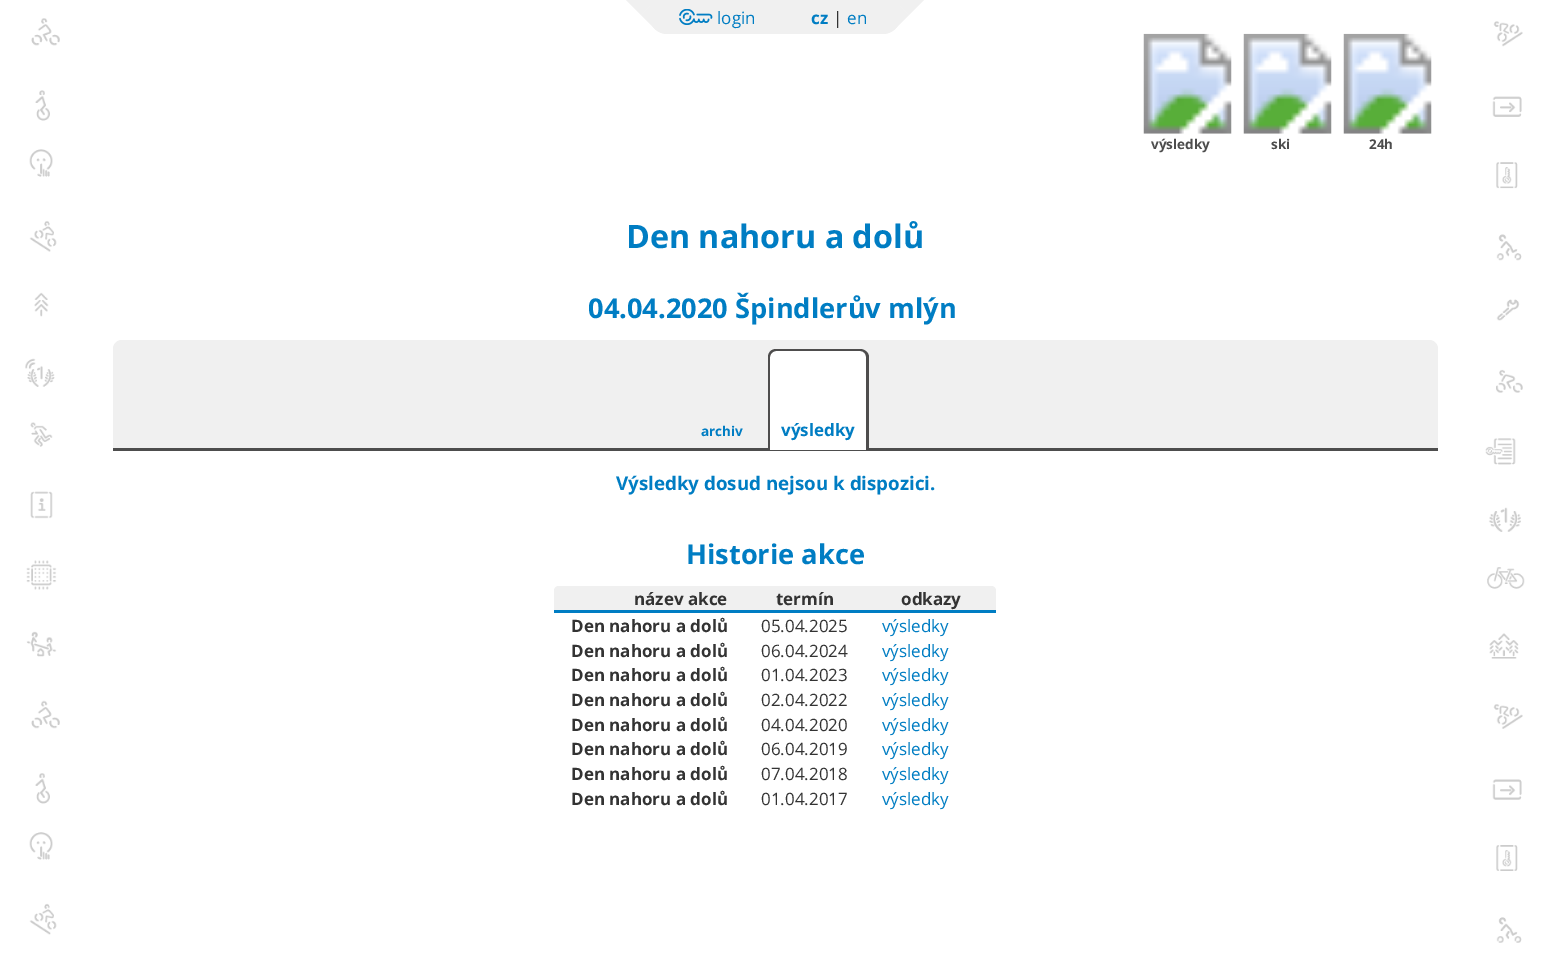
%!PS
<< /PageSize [1549 960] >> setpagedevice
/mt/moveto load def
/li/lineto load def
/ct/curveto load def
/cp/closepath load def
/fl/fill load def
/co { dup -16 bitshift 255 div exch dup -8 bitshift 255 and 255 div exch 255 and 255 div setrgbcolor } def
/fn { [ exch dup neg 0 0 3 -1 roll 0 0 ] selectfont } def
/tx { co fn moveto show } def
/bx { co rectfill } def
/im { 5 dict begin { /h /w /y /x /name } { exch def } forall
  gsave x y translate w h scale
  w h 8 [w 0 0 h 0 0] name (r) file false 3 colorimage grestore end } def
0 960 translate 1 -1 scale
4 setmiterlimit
0 0 1549 960 16#FFFFFF bx
(media/1.raw) 25 18 1500 925 im
90 18 1365 925 16#FFFFFF bx
16#F0F0F0 co
650 0 mt 900 0 li 900 17 li 900 26.5 892.5 34 883 34 ct 667 34 li 657.5 34 650 26.5 650 17 ct cp fl
626 0 mt 656 0 li 641 15 li cp fl
656 0 mt 656 30 li 641 15 li cp fl
(media/2.raw) 679 9 34 16 im
894 0 mt 924 0 li 909 15 li cp fl
894 30 mt 894 0 li 909 15 li cp fl
(media/3.raw) 1143 33 89 101 im
(media/4.raw) 1243 33 89 101 im
(media/4.raw) 1343 33 89 101 im
122 340 mt 1429 340 li 1434 340 1438 344 1438 349 ct 1438 450 li 113 450 li 113 349 li 113 344 117 340 122 340 ct cp fl
113 448 1325 3 16#4D4D4D bx
16#FFFFFF co
777 349 mt 860 349 li 865 349 869 353 869 358 ct 869 450 li 768 450 li 768 358 li 768 353 772 349 777 349 ct cp fl
16#4E4D4D co
776 349 mt 860 349 li 865 349 869 353 869 357 ct 869 450 li 768 450 li 768 357 li 768 353 771 349 776 349 ct cp 776 351 mt 860 351 li 864 351 866 354 866 357 ct 866 450 li 770 450 li 770 357 li 770 354 773 351 776 351 ct cp eofill
16#F0F0F0 co
559 586 mt 745 586 li 745 613 li 554 613 li 554 591 li 554 588 556 586 559 586 ct cp fl
554 610 311 3 16#007DC3 bx
745 586 120 24 16#F0F0F0 bx
865 586 mt 991 586 li 994 586 996 588 996 591 ct 996 613 li 865 613 li cp fl
865 610 131 3 16#007DC3 bx
(login) 717 24 /OpenSans-Regular 17 16#007DC3 tx
(cz) 811 24 /OpenSans-Bold 17 16#007DC3 tx
(|) 833 24 /OpenSans-Regular 17 16#333333 tx
(en) 847 24 /OpenSans-Regular 17 16#007DC3 tx
(výsledky) 1151 149 /OpenSans-Bold 13.5 16#4D4D4D tx
(ski) 1271 149 /OpenSans-Bold 13.5 16#4D4D4D tx
(24h) 1369 149 /OpenSans-Bold 13.5 16#4D4D4D tx
(Den nahoru a dolů) 626 248 /OpenSans-Bold 32.25 16#007DC3 tx
(04.04.2020 Špindlerův mlýn) 588 318 /OpenSans-Bold 27.25 16#007DC3 tx
(archiv) 701 436 /OpenSans-Bold 13.5 16#007DC3 tx
(výsledky) 781 436 /OpenSans-Bold 17 16#007DC3 tx
(Výsledky dosud nejsou k dispozici.) 616 490 /OpenSans-Bold 18.75 16#007DC3 tx
(Historie akce) 686 564 /OpenSans-Bold 27.25 16#007DC3 tx
(název akce) 634 605 /OpenSans-Bold 17 16#333333 tx
(termín) 776 605 /OpenSans-Bold 17 16#333333 tx
(odkazy) 901 605 /OpenSans-Bold 17 16#333333 tx
(Den nahoru a dolů) 571 632 /OpenSans-Bold 17 16#333333 tx
(05.04.2025) 761 632 /OpenSans-Regular 17 16#333333 tx
(výsledky) 882 632 /OpenSans-Regular 17 16#007DC3 tx
(Den nahoru a dolů) 571 657 /OpenSans-Bold 17 16#333333 tx
(06.04.2024) 761 657 /OpenSans-Regular 17 16#333333 tx
(výsledky) 882 657 /OpenSans-Regular 17 16#007DC3 tx
(Den nahoru a dolů) 571 681 /OpenSans-Bold 17 16#333333 tx
(01.04.2023) 761 681 /OpenSans-Regular 17 16#333333 tx
(výsledky) 882 681 /OpenSans-Regular 17 16#007DC3 tx
(Den nahoru a dolů) 571 706 /OpenSans-Bold 17 16#333333 tx
(02.04.2022) 761 706 /OpenSans-Regular 17 16#333333 tx
(výsledky) 882 706 /OpenSans-Regular 17 16#007DC3 tx
(Den nahoru a dolů) 571 731 /OpenSans-Bold 17 16#333333 tx
(04.04.2020) 761 731 /OpenSans-Regular 17 16#333333 tx
(výsledky) 882 731 /OpenSans-Regular 17 16#007DC3 tx
(Den nahoru a dolů) 571 755 /OpenSans-Bold 17 16#333333 tx
(06.04.2019) 761 755 /OpenSans-Regular 17 16#333333 tx
(výsledky) 882 755 /OpenSans-Regular 17 16#007DC3 tx
(Den nahoru a dolů) 571 780 /OpenSans-Bold 17 16#333333 tx
(07.04.2018) 761 780 /OpenSans-Regular 17 16#333333 tx
(výsledky) 882 780 /OpenSans-Regular 17 16#007DC3 tx
(Den nahoru a dolů) 571 805 /OpenSans-Bold 17 16#333333 tx
(01.04.2017) 761 805 /OpenSans-Regular 17 16#333333 tx
(výsledky) 882 805 /OpenSans-Regular 17 16#007DC3 tx
showpage
